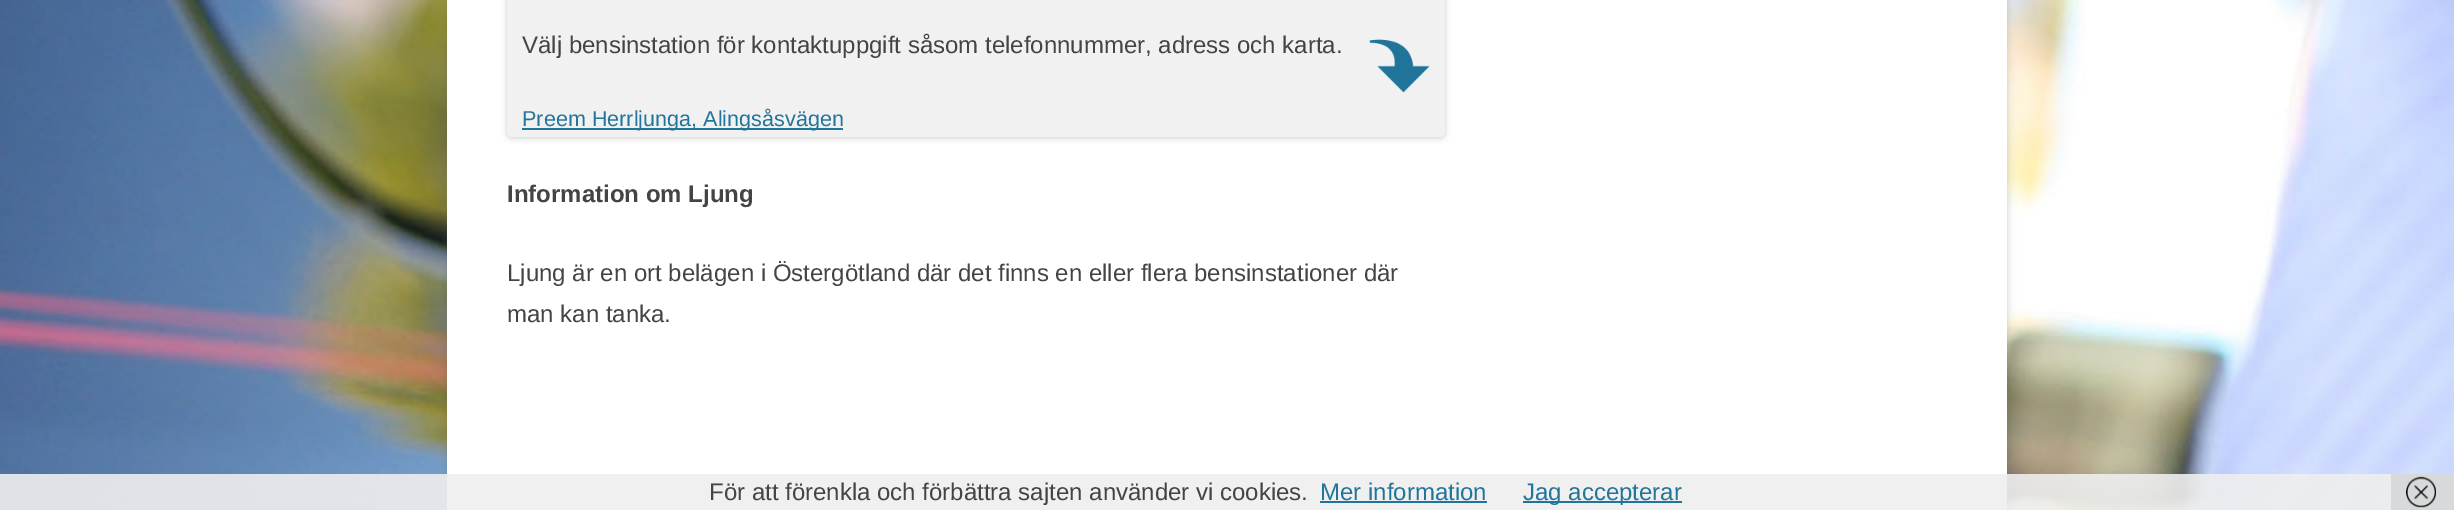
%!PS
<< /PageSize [2454 510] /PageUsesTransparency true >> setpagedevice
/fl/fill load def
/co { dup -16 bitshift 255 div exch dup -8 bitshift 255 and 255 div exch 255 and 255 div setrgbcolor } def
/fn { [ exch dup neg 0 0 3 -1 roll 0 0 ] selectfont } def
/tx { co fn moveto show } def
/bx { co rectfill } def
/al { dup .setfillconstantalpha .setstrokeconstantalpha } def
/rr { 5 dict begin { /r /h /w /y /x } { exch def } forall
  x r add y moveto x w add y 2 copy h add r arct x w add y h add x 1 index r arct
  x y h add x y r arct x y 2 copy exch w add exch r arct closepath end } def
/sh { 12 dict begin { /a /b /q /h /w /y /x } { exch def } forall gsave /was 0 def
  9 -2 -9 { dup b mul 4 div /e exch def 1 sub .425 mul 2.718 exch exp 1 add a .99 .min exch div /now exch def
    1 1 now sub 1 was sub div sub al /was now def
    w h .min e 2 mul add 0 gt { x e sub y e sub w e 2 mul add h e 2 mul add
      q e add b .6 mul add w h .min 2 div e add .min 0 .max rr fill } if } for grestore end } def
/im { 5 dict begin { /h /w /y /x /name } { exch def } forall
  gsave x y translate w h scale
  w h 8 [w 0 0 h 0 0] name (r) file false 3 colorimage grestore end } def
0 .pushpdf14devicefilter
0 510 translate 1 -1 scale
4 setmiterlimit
0 0 2454 510 16#FFFFFF bx
(media/1.raw) 0 0 2454 510 im
16#646464 co
447 -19 1560 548 5 4.5 .3 sh
447 0 1560 510 16#FFFFFF bx
16#000000 co
507 -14 938 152 5 3 .2 sh
16#F1F1F1 co
507 -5 938 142 5 rr fl
(media/2.raw) 1369 39 61 54 im
522 128 321 2 16#21759B bx
0.9 al
0 474 2391 36 16#EEEEEE bx
1 al
1320 501 167 2 16#21759B bx
1523 501 159 2 16#21759B bx
2391 474 63 36 16#D8D9DA bx
(media/3.raw) 2406 476 30 32 im
(Välj bensinstation för kontaktuppgift såsom telefonnummer, adress och karta.) 522 53 /LiberationSans-Regular 24 16#444444 tx
(Preem Herrljunga, Alingsåsvägen) 522 126 /LiberationSans-Regular 21.6 16#21759B tx
(Information om Ljung) 507 202 /LiberationSans-Bold 24 16#444444 tx
(Ljung är en ort belägen i Östergötland där det finns en eller flera bensinstationer där) 507 281 /LiberationSans-Regular 24 16#444444 tx
(man kan tanka.) 507 322 /LiberationSans-Regular 24 16#444444 tx
(För att förenkla och förbättra sajten använder vi cookies.) 709 500 /LiberationSans-Regular 24 16#444444 tx
(Mer information) 1320 500 /LiberationSans-Regular 24 16#21759B tx
(Jag accepterar) 1523 500 /LiberationSans-Regular 24 16#21759B tx
.poppdf14devicefilter showpage
